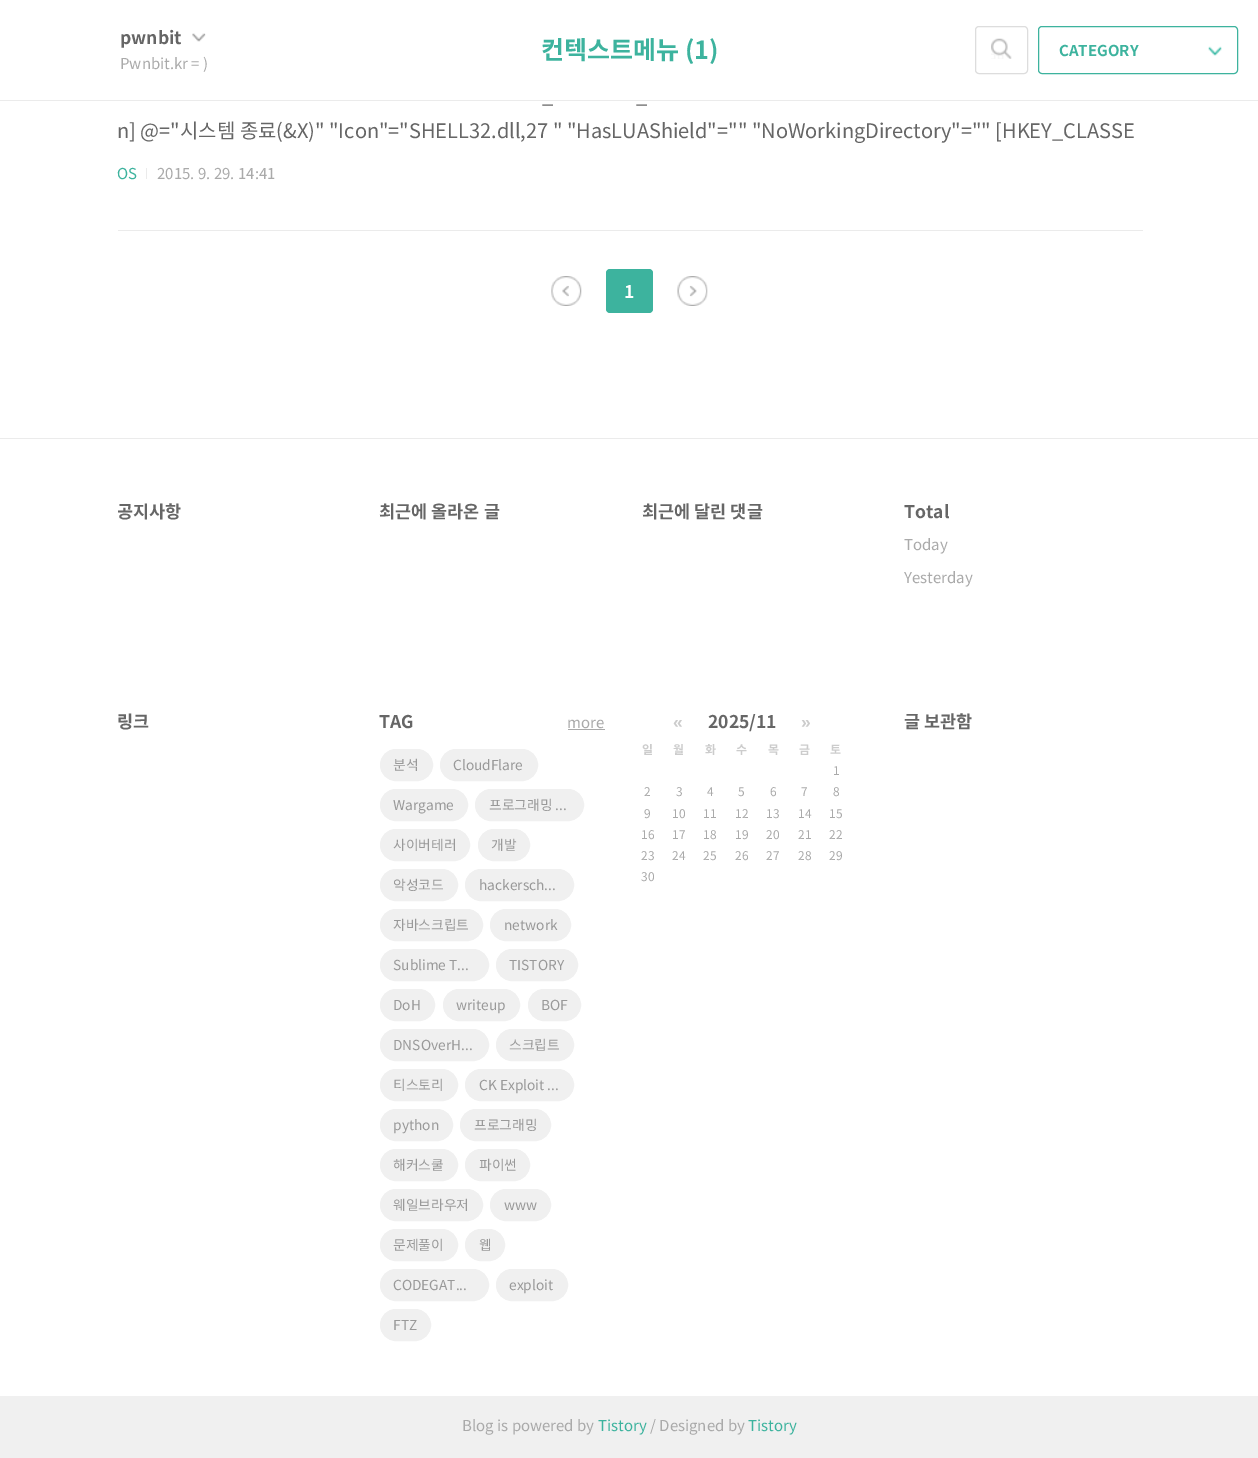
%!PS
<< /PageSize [1258 1458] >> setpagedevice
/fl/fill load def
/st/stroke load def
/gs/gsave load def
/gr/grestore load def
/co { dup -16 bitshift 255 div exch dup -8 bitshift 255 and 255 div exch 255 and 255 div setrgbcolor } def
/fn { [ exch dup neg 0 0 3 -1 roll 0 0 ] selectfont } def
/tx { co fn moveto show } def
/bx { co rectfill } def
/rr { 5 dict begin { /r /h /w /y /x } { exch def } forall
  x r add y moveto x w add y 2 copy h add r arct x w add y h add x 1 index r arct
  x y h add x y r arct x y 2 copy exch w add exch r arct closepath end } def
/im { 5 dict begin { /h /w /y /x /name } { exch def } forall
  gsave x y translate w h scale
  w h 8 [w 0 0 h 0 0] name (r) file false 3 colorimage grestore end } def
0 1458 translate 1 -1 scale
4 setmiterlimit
0 0 1258 1458 16#FFFFFF bx
0 100 1258 1 16#EBEBEB bx
(media/1.raw) 192 33 14 9 im
16#DDDDDD co
975.5 26.5 52 47 3.5 rr st
(media/2.raw) 991 38 21 21 im
16#3DB39E co
1038.5 26.5 199 47 3.5 rr st
(media/3.raw) 1208 46 14 10 im
118 230 1025 1 16#EBEBEB bx
146 168 1 11 16#EBEBEB bx
(media/4.raw) 551 276 31 30 im
16#3DB39E co
606 269 47 44 4 rr fl
(media/5.raw) 677 276 31 30 im
0 438 1258 1 16#EBEBEB bx
568 729 37 1 16#AAAAAA bx
16#F0F0F0 co
380.5 749.5 52 31 15.5 rr gs fl gr
st
440.5 749.5 97 31 15.5 rr gs fl gr
st
380.5 789.5 87 31 15.5 rr gs fl gr
st
475.5 789.5 108 31 15.5 rr gs fl gr
st
380.5 829.5 89 31 15.5 rr gs fl gr
st
478.5 829.5 51 31 15.5 rr gs fl gr
st
380.5 869.5 77 31 15.5 rr gs fl gr
st
465.5 869.5 108 31 15.5 rr gs fl gr
st
380.5 909.5 102 31 15.5 rr gs fl gr
st
490.5 909.5 80 31 15.5 rr gs fl gr
st
380.5 949.5 108 31 15.5 rr gs fl gr
st
496.5 949.5 81 31 15.5 rr gs fl gr
st
380.5 989.5 54 31 15.5 rr gs fl gr
st
443.5 989.5 76 31 15.5 rr gs fl gr
st
528.5 989.5 52 31 15.5 rr gs fl gr
st
380.5 1029.5 108 31 15.5 rr gs fl gr
st
496.5 1029.5 77 31 15.5 rr gs fl gr
st
380.5 1069.5 77 31 15.5 rr gs fl gr
st
465.5 1069.5 108 31 15.5 rr gs fl gr
st
380.5 1109.5 72 31 15.5 rr gs fl gr
st
460.5 1109.5 90 31 15.5 rr gs fl gr
st
380.5 1149.5 77 31 15.5 rr gs fl gr
st
465.5 1149.5 64 31 15.5 rr gs fl gr
st
380.5 1189.5 102 31 15.5 rr gs fl gr
st
490.5 1189.5 60 31 15.5 rr gs fl gr
st
380.5 1229.5 77 31 15.5 rr gs fl gr
st
465.5 1229.5 39 31 15.5 rr gs fl gr
st
380.5 1269.5 108 31 15.5 rr gs fl gr
st
496.5 1269.5 71 31 15.5 rr gs fl gr
st
380.5 1309.5 50 31 15.5 rr gs fl gr
st
0 1396 1258 62 16#F0F0F0 bx
(pwnbit) 120 44 /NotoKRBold-Bold 17.5 16#666666 tx
(Pwnbit.kr = \)) 120 69 /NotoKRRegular-Regular 15 16#AAAAAA tx
(컨텍스트메뉴 \(1\)) 541 59 /NotoKRBold-Bold 25 16#3DB39E tx
(CATEGORY) 1059 56 /NotoKRBold-Bold 15 16#3DB39E tx
(_) 542 103 /NotoKRRegular-Regular 20 16#666666 tx
(_) 636 103 /NotoKRRegular-Regular 20 16#666666 tx
(n] @="시스템 종료\(&X\)" "Icon"="SHELL32.dll,27 " "HasLUAShield"="" "NoWorkingDirectory"="" [HKEY_CLASSE) 117 138 /NotoKRRegular-Regular 20 16#666666 tx
(OS) 117 179 /NotoKRRegular-Regular 15 16#3DB39E tx
(2015. 9. 29. 14:41) 157 179 /NotoKRRegular-Regular 15 16#AAAAAA tx
(1) 624 298 /NotoKRBold-Bold 17.5 16#FFFFFF tx
gs
118 499 1025 891 rectclip
(공지사항) 117 518 /NotoKRBold-Bold 17.5 16#666666 tx
gr
(최근에 올라온 글) 379 518 /NotoKRBold-Bold 17.5 16#666666 tx
(최근에 달린 댓글) 642 518 /NotoKRBold-Bold 17.5 16#666666 tx
(Total) 904 518 /NotoKRBold-Bold 17.5 16#666666 tx
(Today) 904 550 /NotoKRRegular-Regular 15 16#AAAAAA tx
(Yesterday) 904 583 /NotoKRRegular-Regular 15 16#AAAAAA tx
(링크) 117 728 /NotoKRBold-Bold 17.5 16#666666 tx
(TAG) 379 728 /NotoKRBold-Bold 17.5 16#666666 tx
(more) 567 728 /NotoKRRegular-Regular 15 16#AAAAAA tx
(분석) 393 770 /NotoKRRegular-Regular 13.75 16#999999 tx
(CloudFlare) 453 770 /NotoKRRegular-Regular 13.75 16#999999 tx
(Wargame) 393 810 /NotoKRRegular-Regular 13.75 16#999999 tx
(프로그래밍 ...) 489 810 /NotoKRRegular-Regular 13.75 16#999999 tx
(사이버테러) 393 850 /NotoKRRegular-Regular 13.75 16#999999 tx
(개발) 491 850 /NotoKRRegular-Regular 13.75 16#999999 tx
(악성코드) 393 890 /NotoKRRegular-Regular 13.75 16#999999 tx
(hackersch...) 479 890 /NotoKRRegular-Regular 13.75 16#999999 tx
(자바스크립트) 393 930 /NotoKRRegular-Regular 13.75 16#999999 tx
(network) 504 930 /NotoKRRegular-Regular 13.75 16#999999 tx
(Sublime T...) 393 970 /NotoKRRegular-Regular 13.75 16#999999 tx
(TISTORY) 509 970 /NotoKRRegular-Regular 13.75 16#999999 tx
(DoH) 393 1010 /NotoKRRegular-Regular 13.75 16#999999 tx
(writeup) 456 1010 /NotoKRRegular-Regular 13.75 16#999999 tx
(BOF) 541 1010 /NotoKRRegular-Regular 13.75 16#999999 tx
(DNSOverH...) 393 1050 /NotoKRRegular-Regular 13.75 16#999999 tx
(스크립트) 509 1050 /NotoKRRegular-Regular 13.75 16#999999 tx
(티스토리) 393 1090 /NotoKRRegular-Regular 13.75 16#999999 tx
(CK Exploit ...) 479 1090 /NotoKRRegular-Regular 13.75 16#999999 tx
(python) 393 1130 /NotoKRRegular-Regular 13.75 16#999999 tx
(프로그래밍) 474 1130 /NotoKRRegular-Regular 13.75 16#999999 tx
(해커스쿨) 393 1170 /NotoKRRegular-Regular 13.75 16#999999 tx
(파이썬) 479 1170 /NotoKRRegular-Regular 13.75 16#999999 tx
(웨일브라우저) 393 1210 /NotoKRRegular-Regular 13.75 16#999999 tx
(www) 504 1210 /NotoKRRegular-Regular 13.75 16#999999 tx
(문제풀이) 393 1250 /NotoKRRegular-Regular 13.75 16#999999 tx
(웹) 479 1250 /NotoKRRegular-Regular 13.75 16#999999 tx
(CODEGAT...) 393 1290 /NotoKRRegular-Regular 13.75 16#999999 tx
(exploit) 509 1290 /NotoKRRegular-Regular 13.75 16#999999 tx
(FTZ) 393 1330 /NotoKRRegular-Regular 13.75 16#999999 tx
(«) 673 728 /LiberationSans-Bold 17.5 16#CCCCCC tx
(2025/11) 708 728 /NotoKRBold-Bold 17.5 16#666666 tx
(») 801 728 /LiberationSans-Bold 17.5 16#CCCCCC tx
(일) 642 754 /NotoKRBold-Bold 12 16#CCCCCC tx
(월) 673 754 /NotoKRBold-Bold 12 16#CCCCCC tx
(화) 705 754 /NotoKRBold-Bold 12 16#CCCCCC tx
(수) 736 754 /NotoKRBold-Bold 12 16#CCCCCC tx
(목) 768 754 /NotoKRBold-Bold 12 16#CCCCCC tx
(금) 799 754 /NotoKRBold-Bold 12 16#CCCCCC tx
(토) 830 754 /NotoKRBold-Bold 12 16#CCCCCC tx
(1) 833 775 /NotoKRRegular-Regular 12 16#AAAAAA tx
(2) 644 796 /NotoKRRegular-Regular 12 16#AAAAAA tx
(3) 676 796 /NotoKRRegular-Regular 12 16#AAAAAA tx
(4) 707 796 /NotoKRRegular-Regular 12 16#AAAAAA tx
(5) 738 796 /NotoKRRegular-Regular 12 16#AAAAAA tx
(6) 770 796 /NotoKRRegular-Regular 12 16#AAAAAA tx
(7) 801 796 /NotoKRRegular-Regular 12 16#AAAAAA tx
(8) 833 796 /NotoKRRegular-Regular 12 16#AAAAAA tx
(9) 644 818 /NotoKRRegular-Regular 12 16#AAAAAA tx
(10) 672 818 /NotoKRRegular-Regular 12 16#AAAAAA tx
(11) 703 818 /NotoKRRegular-Regular 12 16#AAAAAA tx
(12) 735 818 /NotoKRRegular-Regular 12 16#AAAAAA tx
(13) 766 818 /NotoKRRegular-Regular 12 16#AAAAAA tx
(14) 798 818 /NotoKRRegular-Regular 12 16#AAAAAA tx
(15) 829 818 /NotoKRRegular-Regular 12 16#AAAAAA tx
(16) 641 839 /NotoKRRegular-Regular 12 16#AAAAAA tx
(17) 672 839 /NotoKRRegular-Regular 12 16#AAAAAA tx
(18) 703 839 /NotoKRRegular-Regular 12 16#AAAAAA tx
(19) 735 839 /NotoKRRegular-Regular 12 16#AAAAAA tx
(20) 766 839 /NotoKRRegular-Regular 12 16#AAAAAA tx
(21) 798 839 /NotoKRRegular-Regular 12 16#AAAAAA tx
(22) 829 839 /NotoKRRegular-Regular 12 16#AAAAAA tx
(23) 641 860 /NotoKRRegular-Regular 12 16#AAAAAA tx
(24) 672 860 /NotoKRRegular-Regular 12 16#AAAAAA tx
(25) 703 860 /NotoKRRegular-Regular 12 16#AAAAAA tx
(26) 735 860 /NotoKRRegular-Regular 12 16#AAAAAA tx
(27) 766 860 /NotoKRRegular-Regular 12 16#AAAAAA tx
(28) 798 860 /NotoKRRegular-Regular 12 16#AAAAAA tx
(29) 829 860 /NotoKRRegular-Regular 12 16#AAAAAA tx
(30) 641 881 /NotoKRRegular-Regular 12 16#AAAAAA tx
(글 보관함) 904 728 /NotoKRBold-Bold 17.5 16#666666 tx
(Blog is powered by) 462 1431 /NotoKRRegular-Regular 15 16#AAAAAA tx
(Tistory) 598 1431 /NotoKRRegular-Regular 15 16#3DB39E tx
(/ Designed by) 650 1431 /NotoKRRegular-Regular 15 16#AAAAAA tx
(Tistory) 748 1431 /NotoKRRegular-Regular 15 16#3DB39E tx
showpage
